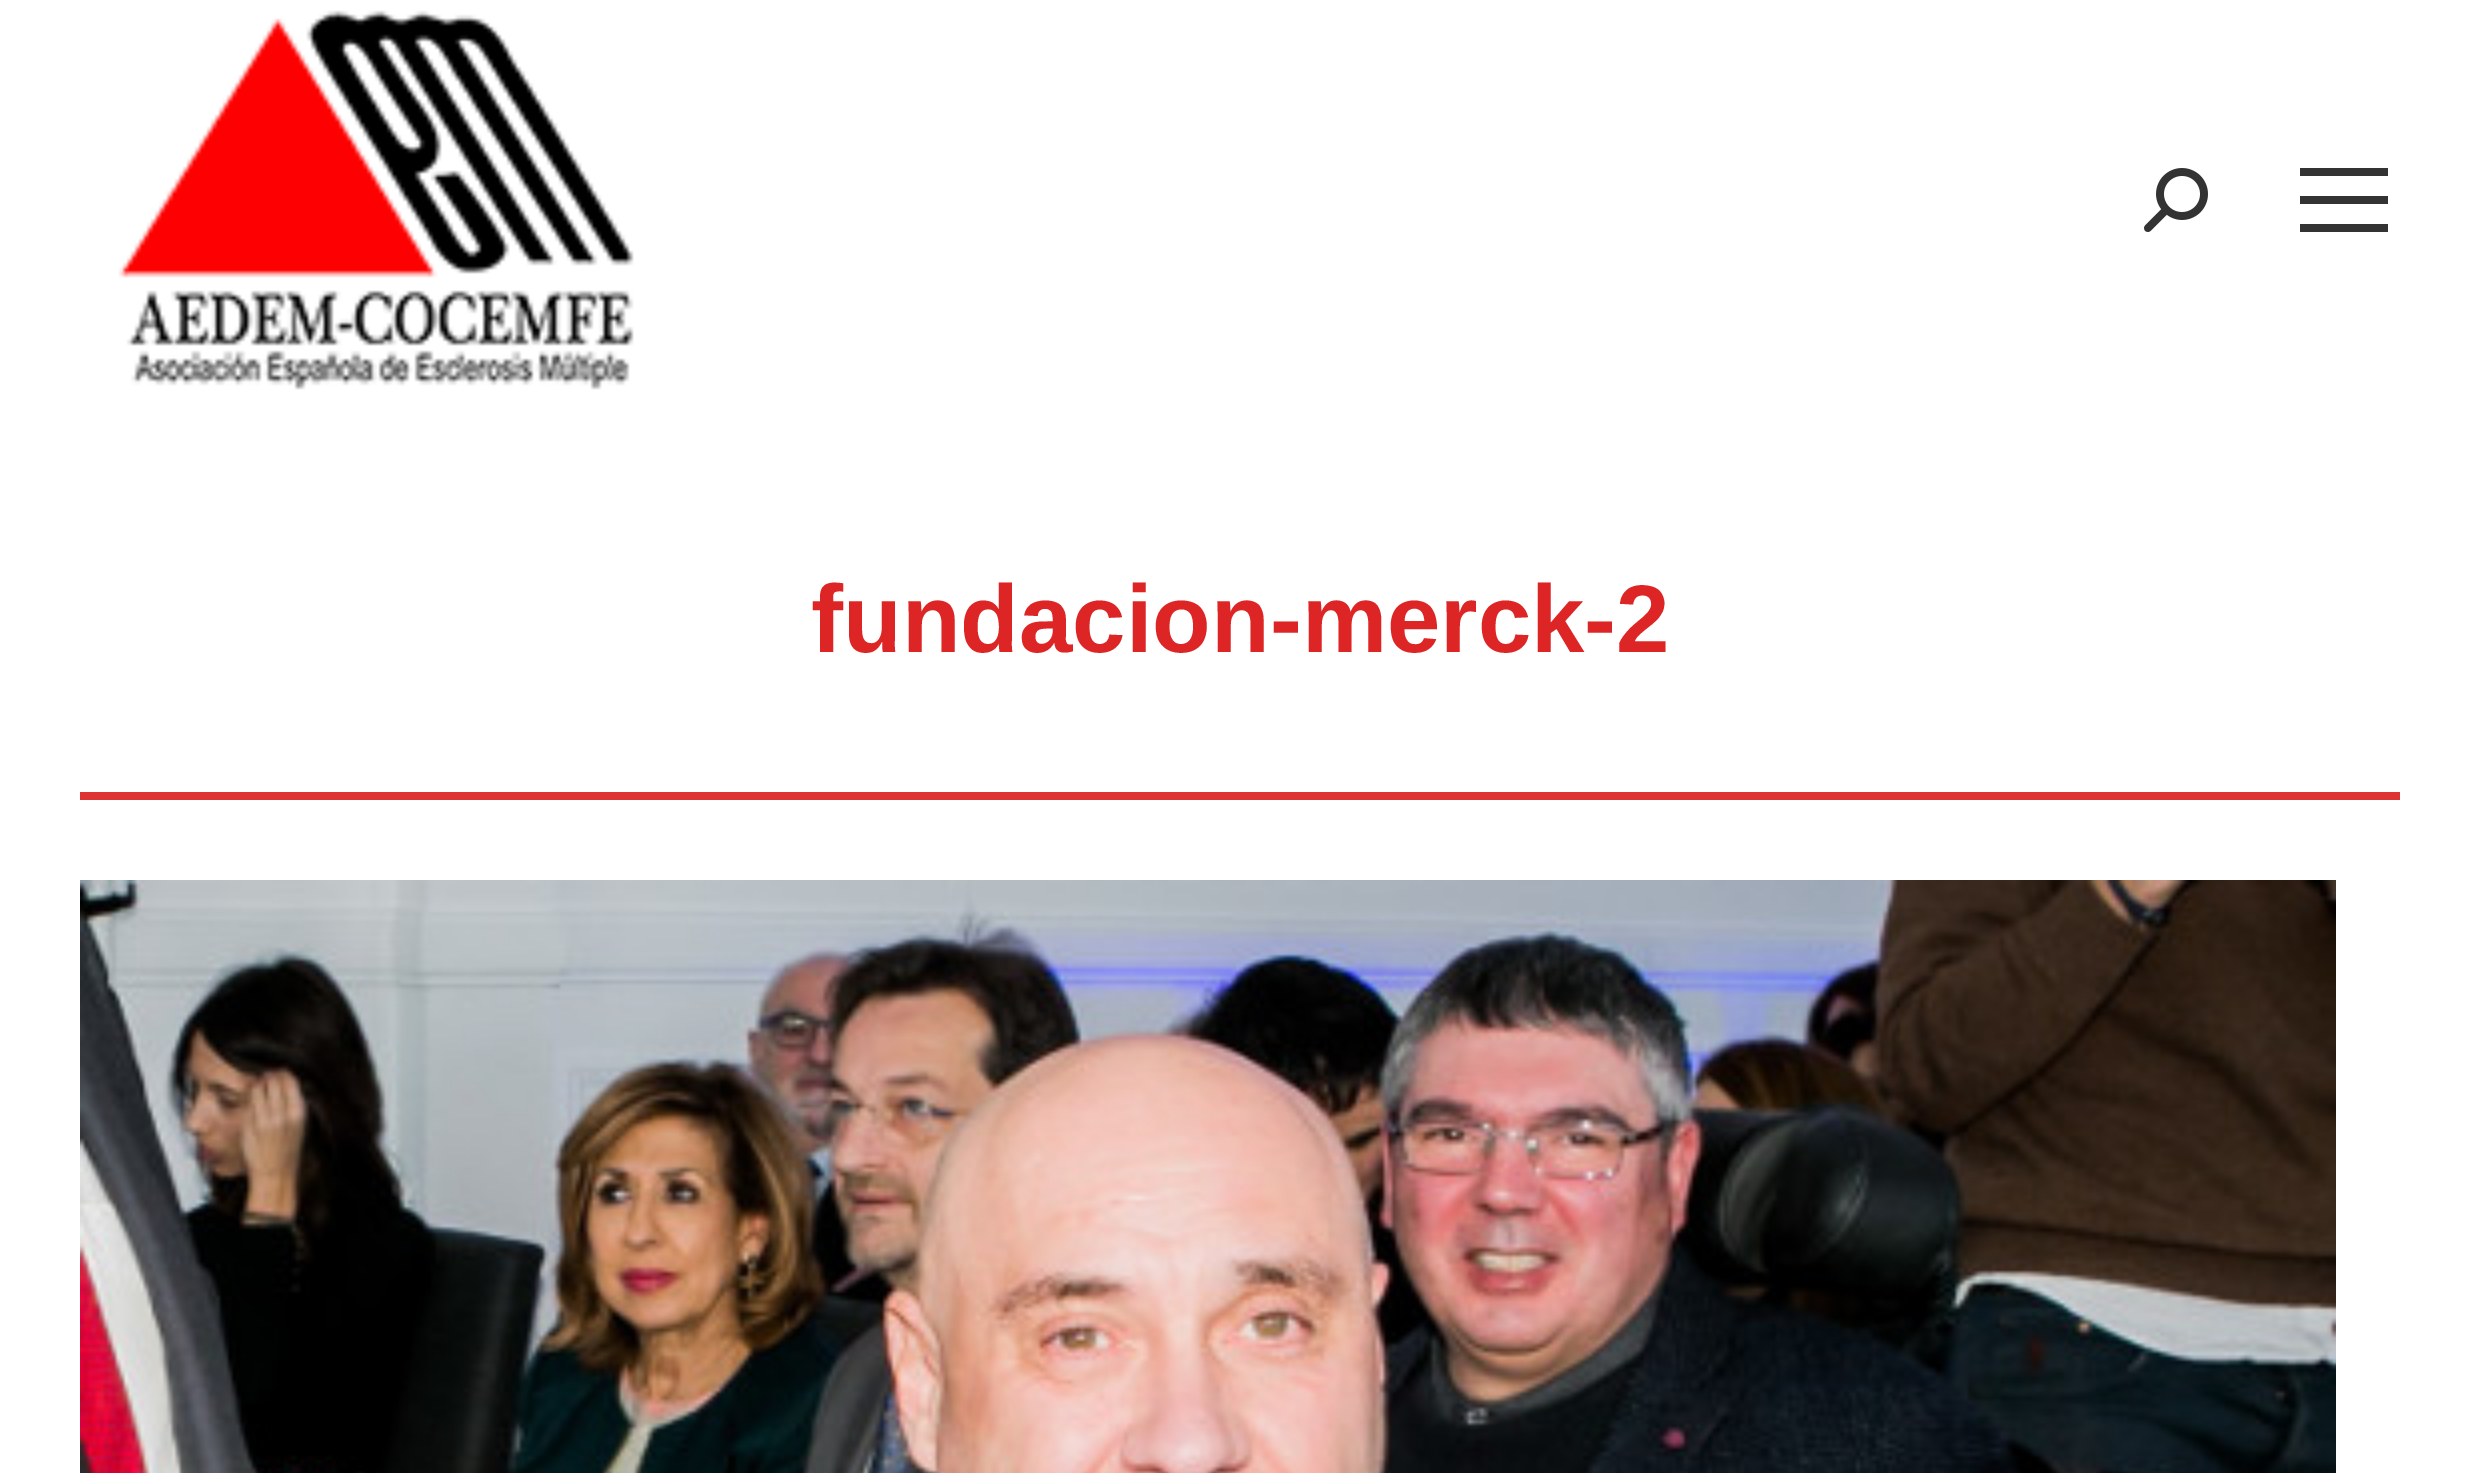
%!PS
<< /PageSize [2480 1473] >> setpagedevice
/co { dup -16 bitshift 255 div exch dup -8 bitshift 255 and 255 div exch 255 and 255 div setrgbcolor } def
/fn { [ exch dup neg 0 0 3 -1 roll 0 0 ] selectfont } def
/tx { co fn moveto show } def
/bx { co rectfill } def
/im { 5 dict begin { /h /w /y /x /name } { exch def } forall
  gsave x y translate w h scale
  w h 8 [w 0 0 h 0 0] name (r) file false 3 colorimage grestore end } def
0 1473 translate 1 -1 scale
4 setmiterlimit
0 0 2480 1473 16#FFFFFF bx
(media/1.raw) 118 10 516 380 im
(media/2.raw) 2144 168 64 64 im
2300 168 88 8 16#333333 bx
2300 196 88 8 16#333333 bx
2300 224 88 8 16#333333 bx
80 792 2320 8 16#DD3333 bx
(media/3.raw) 80 880 2256 593 im
(fundacion-merck-2) 811 652 /LiberationSans-Bold 96 16#DD2525 tx
showpage
